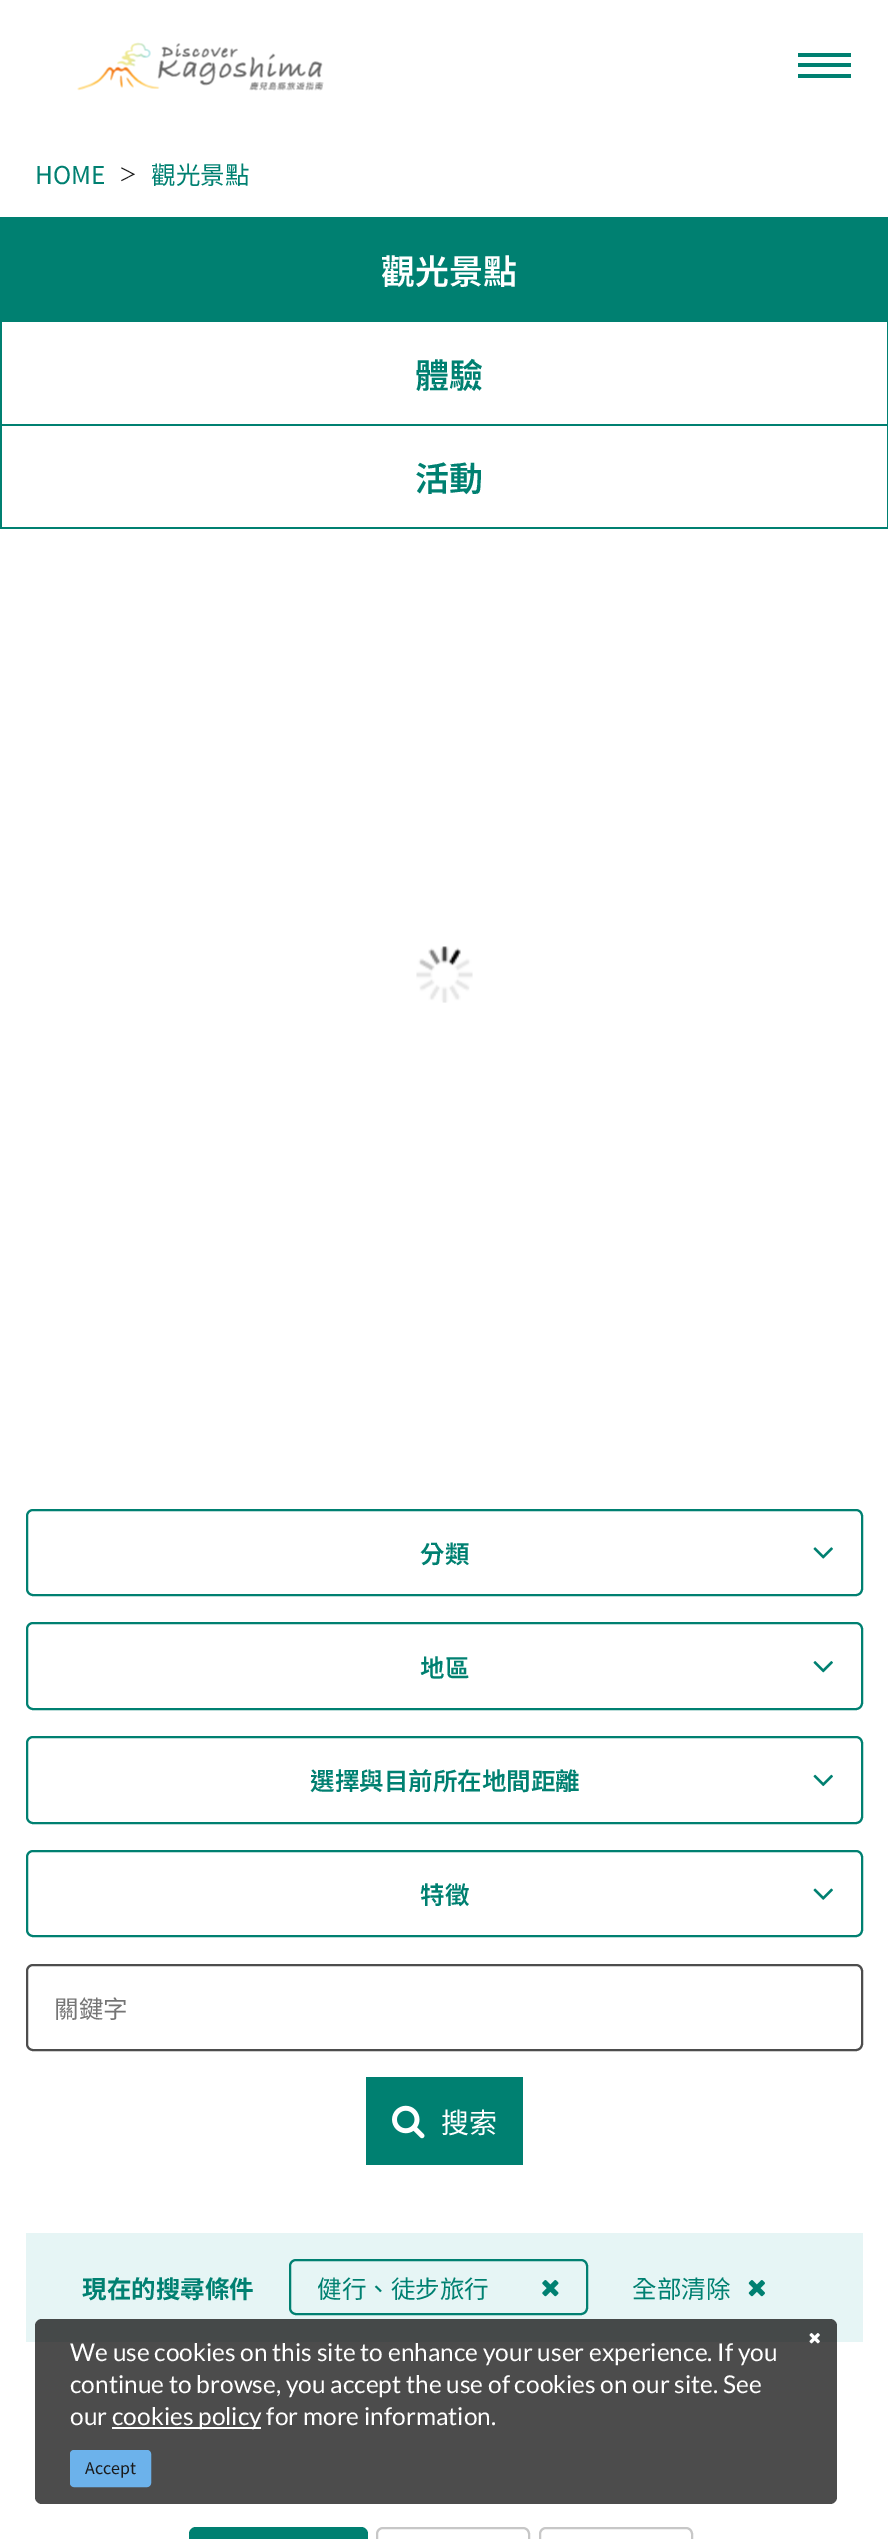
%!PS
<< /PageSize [888 2539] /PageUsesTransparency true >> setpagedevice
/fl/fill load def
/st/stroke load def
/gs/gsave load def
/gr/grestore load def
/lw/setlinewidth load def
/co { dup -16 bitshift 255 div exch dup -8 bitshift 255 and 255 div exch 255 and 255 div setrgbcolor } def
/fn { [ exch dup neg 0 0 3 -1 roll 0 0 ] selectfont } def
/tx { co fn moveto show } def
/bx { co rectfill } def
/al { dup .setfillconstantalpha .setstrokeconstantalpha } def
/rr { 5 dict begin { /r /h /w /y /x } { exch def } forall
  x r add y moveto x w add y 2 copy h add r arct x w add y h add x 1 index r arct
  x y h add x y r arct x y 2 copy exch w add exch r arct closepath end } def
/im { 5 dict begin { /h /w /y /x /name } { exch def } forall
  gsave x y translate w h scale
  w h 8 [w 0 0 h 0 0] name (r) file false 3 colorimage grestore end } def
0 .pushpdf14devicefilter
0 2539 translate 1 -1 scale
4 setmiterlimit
0 0 888 2539 16#FFFFFF bx
(media/1.raw) 77 42 247 49 im
798 53 53 4 16#008071 bx
798 63 53 4 16#008071 bx
798 74 53 4 16#008071 bx
0 527 888 2 16#008071 bx
0 217 888 105 16#008071 bx
887 320 1 104 16#008071 bx
0 320 2 104 16#008071 bx
0 424 888 2 16#008071 bx
887 424 1 103 16#008071 bx
0 424 2 103 16#008071 bx
(media/2.raw) 416 946 57 57 im
2 lw
27 1510 835 85 6 rr st
(media/3.raw) 813 1547 20 12 im
27 1623 835 86 6 rr st
(media/4.raw) 813 1661 20 12 im
27 1737 835 86 6 rr st
(media/5.raw) 813 1774 20 13 im
27 1851 835 85 6 rr st
(media/6.raw) 813 1888 20 12 im
16#4D4D4D co
27 1965 835 85 6 rr st
366 2077 157 88 16#008071 bx
(media/7.raw) 392 2105 33 34 im
26 2233 837 109 16#E6F5F5 bx
16#008071 co
290 2260 297 54 6 rr st
(media/8.raw) 542 2280 17 17 im
(media/9.raw) 748 2280 17 17 im
189 2527 179 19 7 rr fl
16#C7C7C7 co
377 2528 152 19 6 rr st
540 2528 152 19 6 rr st
0.7 al
16#000000 co
35 2319 802 185 7 rr fl
1 al
(media/10.raw) 809 2333 11 11 im
112 2427 149 2 16#FFFFFF bx
16#6CB2EB co
71 2451 79 35 3 rr gs fl gr
st
(HOME) 35 184 /NotoSansTC-Regular 24.5 16#008071 tx
(＞) 119 181 /NotoSansTC-Regular 18 16#1A1A1A tx
(觀光景點) 151 184 /NotoSansTC-Regular 24.5 16#008071 tx
(觀光景點) 381 284 /NotoSansTC-SemiBold 34 16#FFFFFF tx
(體驗) 415 388 /NotoSansTC-SemiBold 34 16#008071 tx
(活動) 415 491 /NotoSansTC-SemiBold 34 16#008071 tx
(分類) 420 1563 /NotoSansTC-SemiBold 24.5 16#008071 tx
(地區) 420 1677 /NotoSansTC-SemiBold 24.5 16#008071 tx
(選擇與目前所在地間距離) 310 1790 /NotoSansTC-SemiBold 24.5 16#008071 tx
(特徵) 420 1904 /NotoSansTC-SemiBold 24.5 16#008071 tx
(關鍵字) 54 2018 /NotoSansTC-Regular 24.5 16#757575 tx
(搜索) 441 2133 /NotoSansTC-Regular 28 16#FFFFFF tx
(現在的搜尋條件) 82 2298 /NotoSansTC-Bold 24.5 16#008071 tx
(健行、徒步旅行) 317 2298 /NotoSansTC-Regular 24.5 16#008071 tx
(全部清除) 632 2298 /NotoSansTC-Regular 24.5 16#008071 tx
(We use cookies on this site to enhance your user experience. If you) 70 2361 /Lato-Regular 24.5 16#FFFFFF tx
(continue to browse, you accept the use of cookies on our site. See) 70 2393 /Lato-Regular 24.5 16#FFFFFF tx
(our) 70 2425 /Lato-Regular 24.5 16#FFFFFF tx
(cookies policy for more information.) 112 2425 /Lato-Regular 24.5 16#FFFFFF tx
(Accept) 85 2474 /NotoSansTC-Regular 16 16#1A1A1A tx
.poppdf14devicefilter showpage
